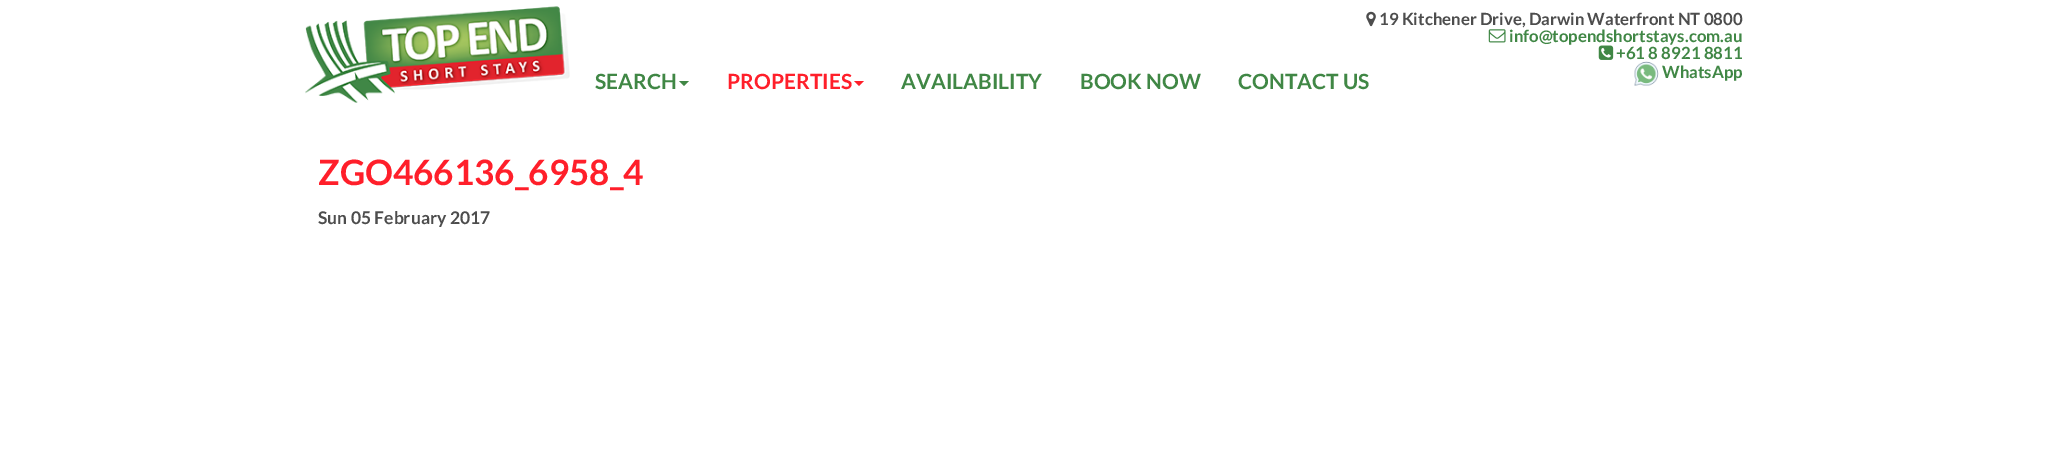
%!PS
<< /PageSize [2060 465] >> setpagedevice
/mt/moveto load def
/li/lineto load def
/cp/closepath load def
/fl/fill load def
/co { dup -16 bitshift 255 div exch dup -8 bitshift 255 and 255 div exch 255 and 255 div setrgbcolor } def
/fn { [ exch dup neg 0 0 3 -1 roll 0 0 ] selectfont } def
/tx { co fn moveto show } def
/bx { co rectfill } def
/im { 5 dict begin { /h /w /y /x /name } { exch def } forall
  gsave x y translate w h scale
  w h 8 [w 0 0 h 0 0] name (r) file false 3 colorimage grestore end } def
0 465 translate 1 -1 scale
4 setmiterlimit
0 0 2060 465 16#FFFFFF bx
16#408745 co
679 81 mt 689 81 li 684 86 li cp fl
16#FF1F2A co
854 81 mt 864 81 li 859 86 li cp fl
(media/1.raw) 305 6 265 97 im
(media/2.raw) 1366 11 10 16 im
(media/3.raw) 1488 29 18 14 im
(media/4.raw) 1598 45 16 15 im
(media/5.raw) 1634 61 25 25 im
(SEARCH) 595 89 /Lato-Bold 21 16#408745 tx
(PROPERTIES) 727 89 /Lato-Bold 21 16#FF1F2A tx
(AVAILABILITY) 901 89 /Lato-Bold 21 16#408745 tx
(BOOK NOW) 1080 89 /Lato-Bold 21 16#408745 tx
(CONTACT US) 1238 89 /Lato-Bold 21 16#408745 tx
(19 Kitchener Drive, Darwin Waterfront NT 0800) 1379 25 /Lato-Bold 16.8 16#4D4D4D tx
(info@topendshortstays.com.au) 1509 42 /Lato-Bold 16.8 16#408745 tx
(+61 8 8921 8811) 1616 59 /Lato-Bold 16.8 16#408745 tx
(WhatsApp) 1662 78 /Lato-Bold 16.8 16#408745 tx
(ZGO466136_6958_4) 318 185 /Lato-Bold 35 16#FF1F2A tx
(Sun 05 February 2017) 318 224 /Lato-Bold 17.5 16#4D4D4D tx
showpage
